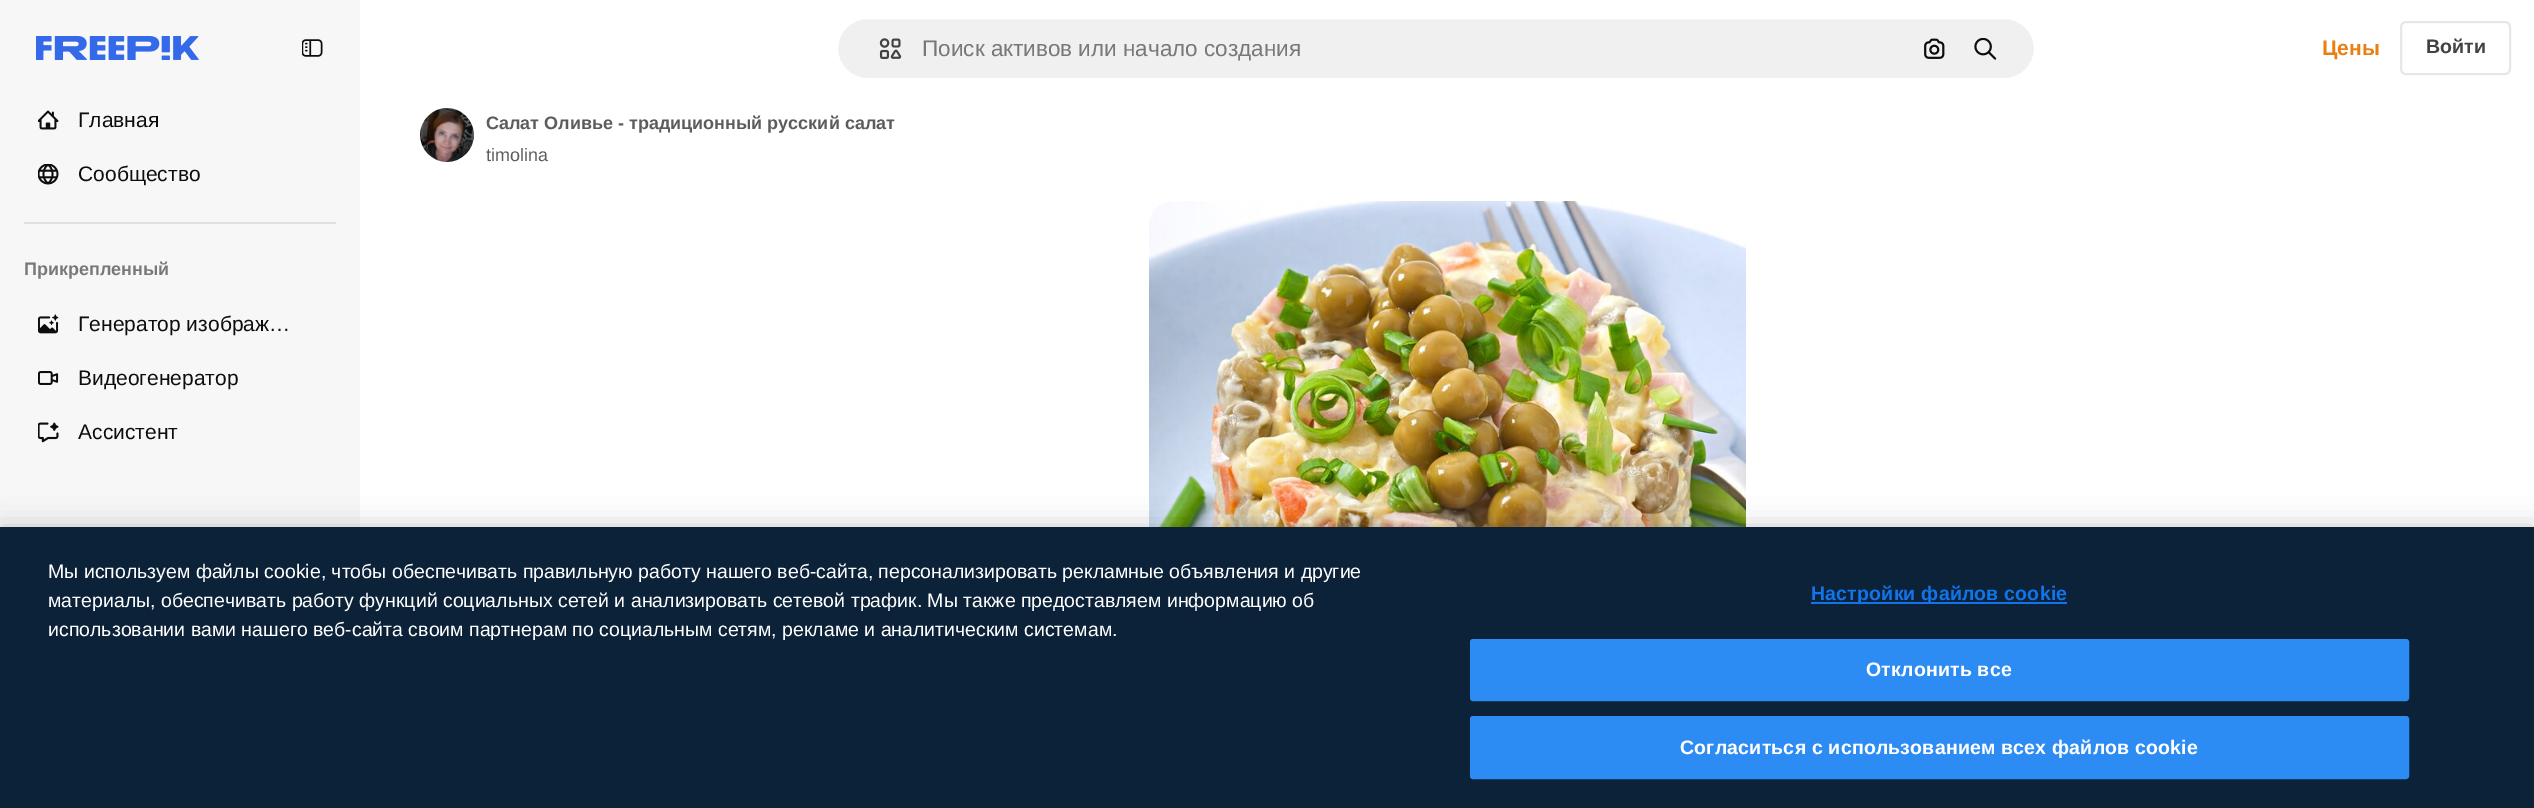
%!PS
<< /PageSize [2534 808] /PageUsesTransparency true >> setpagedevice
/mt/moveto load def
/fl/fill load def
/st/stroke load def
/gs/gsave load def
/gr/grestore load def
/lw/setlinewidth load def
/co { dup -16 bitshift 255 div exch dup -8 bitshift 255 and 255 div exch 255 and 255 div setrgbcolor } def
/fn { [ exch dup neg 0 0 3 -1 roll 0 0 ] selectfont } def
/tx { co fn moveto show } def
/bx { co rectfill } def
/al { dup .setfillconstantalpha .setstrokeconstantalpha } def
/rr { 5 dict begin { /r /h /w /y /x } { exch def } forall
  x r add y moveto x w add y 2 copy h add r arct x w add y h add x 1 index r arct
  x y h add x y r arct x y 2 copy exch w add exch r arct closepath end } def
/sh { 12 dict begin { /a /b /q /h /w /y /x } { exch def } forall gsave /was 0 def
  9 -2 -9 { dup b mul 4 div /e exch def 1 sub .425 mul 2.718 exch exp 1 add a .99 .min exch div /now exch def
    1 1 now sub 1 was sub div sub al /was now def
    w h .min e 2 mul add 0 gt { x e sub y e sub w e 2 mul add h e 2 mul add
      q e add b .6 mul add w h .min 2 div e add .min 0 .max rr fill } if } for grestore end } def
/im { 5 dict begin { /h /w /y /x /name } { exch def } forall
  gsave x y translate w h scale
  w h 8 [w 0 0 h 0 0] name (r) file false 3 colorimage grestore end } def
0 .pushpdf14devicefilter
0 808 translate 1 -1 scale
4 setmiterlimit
0 0 2534 808 16#FFFFFF bx
0 0 360 527 16#F7F7F7 bx
(media/1.raw) 36 36 163 24 im
(media/2.raw) 302 39 21 18 im
(media/3.raw) 38 110 21 20 im
(media/4.raw) 38 164 21 21 im
24 222 312 2 16#E0E0E0 bx
(media/5.raw) 38 314 21 20 im
(media/6.raw) 38 371 21 14 im
(media/7.raw) 38 422 21 21 im
16#F0F0F0 co
837 18 1198 61 30.5 rr gs fl gr
16#FFFFFF co
2 lw
st
(media/8.raw) 879 38 23 21 im
(media/9.raw) 1924 38 21 21 im
(media/10.raw) 1974 38 23 22 im
16#E7E7E7 co
2401 22 109 52 5 rr st
(media/11.raw) 420 108 54 54 im
(media/12.raw) 1149 201 597 326 im
16#000000 co
0 527 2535 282 0 13.5 .2 sh
0 527 2534 281 16#0B2239 bx
1811 602 256 2 16#1273EB bx
16#2C8CF4 co
1471 640 937 60 2 rr gs fl gr
st
1471 717 937 61 2 rr gs fl gr
st
(Главная) 78 127 /LiberationSans-Regular 21 16#0D0D0D tx
(Сообщество) 78 181 /LiberationSans-Regular 21 16#0D0D0D tx
(Прикрепленный) 24 275 /LiberationSans-Bold 18 16#787878 tx
(Генератор изображ…) 78 331 /LiberationSans-Regular 21 16#0D0D0D tx
(Видеогенератор) 78 385 /LiberationSans-Regular 21 16#0D0D0D tx
(Ассистент) 78 439 /LiberationSans-Regular 21 16#0D0D0D tx
(Поиск активов или начало создания) 922 56 /LiberationSans-Regular 22.5 16#787878 tx
(Цены) 2322 55 /LiberationSans-Bold 21 16#EA7E11 tx
(Войти) 2426 53 /LiberationSans-Bold 19.5 16#424242 tx
(Салат Оливье - традиционный русский салат) 486 129 /LiberationSans-Bold 18 16#5C5C5C tx
(timolina) 486 161 /LiberationSans-Regular 18 16#5C5C5C tx
(Мы используем файлы cookie, чтобы обеспечивать правильную работу нашего веб-сайта, персонализировать рекламные объявления и другие) 48 578 /LiberationSans-Regular 19.5 16#FFFFFF tx
(материалы, обеспечивать работу функций социальных сетей и анализировать сетевой трафик. Мы также предоставляем информацию об) 48 607 /LiberationSans-Regular 19.5 16#FFFFFF tx
(использовании вами нашего веб-сайта своим партнерам по социальным сетям, рекламе и аналитическим системам.) 48 636 /LiberationSans-Regular 19.5 16#FFFFFF tx
/LiberationSans-Bold 19.5 fn
16#1273EB co
1811 600 mt .2 0 (Настройки файлов cookie) ashow
16#FFFFFF co
1866 676 mt .2 0 (Отклонить все) ashow
1680 754 mt .2 0 (Согласиться с использованием всех файлов cookie) ashow
.poppdf14devicefilter showpage
